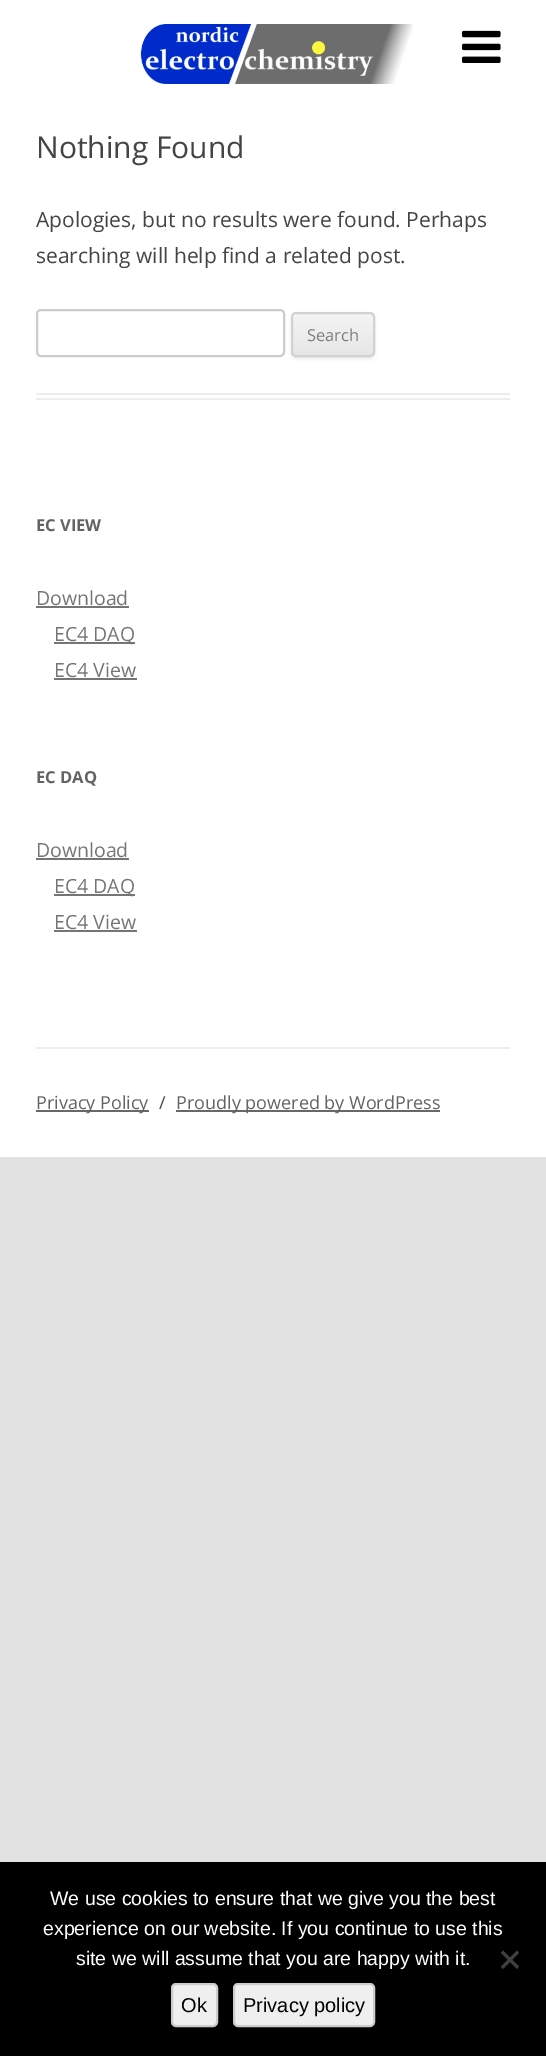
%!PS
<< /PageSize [546 2056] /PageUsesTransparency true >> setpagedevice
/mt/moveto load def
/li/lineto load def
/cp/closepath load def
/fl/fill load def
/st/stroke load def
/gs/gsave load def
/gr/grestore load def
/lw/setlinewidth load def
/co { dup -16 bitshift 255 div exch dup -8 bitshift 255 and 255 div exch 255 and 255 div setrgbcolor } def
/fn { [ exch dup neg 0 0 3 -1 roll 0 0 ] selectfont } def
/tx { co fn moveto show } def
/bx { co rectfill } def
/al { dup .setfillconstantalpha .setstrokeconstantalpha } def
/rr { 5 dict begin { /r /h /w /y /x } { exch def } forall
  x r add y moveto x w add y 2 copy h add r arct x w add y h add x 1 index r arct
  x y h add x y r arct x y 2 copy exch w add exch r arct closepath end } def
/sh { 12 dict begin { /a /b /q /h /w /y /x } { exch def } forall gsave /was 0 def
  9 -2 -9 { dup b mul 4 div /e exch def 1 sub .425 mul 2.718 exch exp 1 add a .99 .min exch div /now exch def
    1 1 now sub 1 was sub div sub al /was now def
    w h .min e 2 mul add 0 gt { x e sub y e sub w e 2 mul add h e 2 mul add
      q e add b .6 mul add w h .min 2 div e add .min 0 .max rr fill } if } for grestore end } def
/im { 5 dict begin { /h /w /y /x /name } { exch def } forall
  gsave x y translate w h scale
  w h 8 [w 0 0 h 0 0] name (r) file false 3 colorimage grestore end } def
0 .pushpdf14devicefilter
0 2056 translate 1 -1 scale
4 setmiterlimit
0 0 546 2056 16#E2E2E2 bx
0 0 546 1157 16#FFFFFF bx
(media/1.raw) 140 24 273 60 im
(media/2.raw) 462 30 39 33 im
36 393 474 2 16#EDEDED bx
36 398 474 2 16#EDEDED bx
16#CCCCCC co
2 lw
37 310 247 46 4 rr st
16#404040 co
291 314 84 45 5 1.5 .1 sh
gs
291 312 84 45 5 rr clip newpath
gs 291 314 mt 375 314 li 375 356 li 291 356 li cp clip newpath
<< /ShadingType 2 /ColorSpace /DeviceRGB /Coords [333 314 333 356] /Extend [true true] /Function << /FunctionType 2 /Domain [0 1] /C0 [.957 .957 .957] /C1 [.902 .902 .902] /N 1 >> >> shfill gr
gr
16#D2D2D2 co
292 313 82 43 4 rr st
36 606 93 2 16#757575 bx
54 642 81 2 16#757575 bx
54 678 83 2 16#757575 bx
36 858 93 2 16#757575 bx
54 894 81 2 16#757575 bx
54 930 83 2 16#757575 bx
36 1047 474 2 16#EDEDED bx
36 1110 113 2 16#686868 bx
176 1110 264 2 16#686868 bx
0 1862 546 194 16#000000 bx
16#404040 co
517 1950.5 mt 519 1953 li 503 1969 li 501 1966.5 li cp fl
501 1953 mt 503 1950.5 li 519 1966.5 li 517 1969 li cp fl
16#EFEFEF co
172 1984 45 42 4 rr gs fl gr
16#CCCCCC co
st
16#EFEFEF co
234 1984 140 42 4 rr gs fl gr
16#CCCCCC co
st
(Nothing Found) 36 158 /OpenSans-Regular 30 16#444444 tx
(Apologies, but no results were found. Perhaps) 36 227 /OpenSans-Regular 21 16#444444 tx
(searching will help find a related post.) 36 263 /OpenSans-Regular 21 16#444444 tx
(Search) 307 341 /OpenSans-Regular 16.5 16#7C7C7C tx
(EC VIEW) 36 531 /OpenSans-Bold 16.5 16#636363 tx
(Download) 36 605 /OpenSans-Regular 19.5 16#757575 tx
(EC4 DAQ) 54 641 /OpenSans-Regular 19.5 16#757575 tx
(EC4 View) 54 677 /OpenSans-Regular 19.5 16#757575 tx
(EC DAQ) 36 783 /OpenSans-Bold 16.5 16#636363 tx
(Download) 36 857 /OpenSans-Regular 19.5 16#757575 tx
(EC4 DAQ) 54 893 /OpenSans-Regular 19.5 16#757575 tx
(EC4 View) 54 929 /OpenSans-Regular 19.5 16#757575 tx
(Privacy Policy) 36 1109 /OpenSans-Regular 18 16#636363 tx
(/) 159 1109 /OpenSans-Regular 18 16#444444 tx
(Proudly powered by WordPress) 176 1109 /OpenSans-Regular 18 16#636363 tx
(We use cookies to ensure that we give you the best) 50 1905 /LiberationSans-Regular 19.5 16#FFFFFF tx
(experience on our website. If you continue to use this) 43 1935 /LiberationSans-Regular 19.5 16#FFFFFF tx
(site we will assume that you are happy with it.) 76 1965 /LiberationSans-Regular 19.5 16#FFFFFF tx
(Ok) 181 2012 /LiberationSans-Regular 20 16#000000 tx
(Privacy policy) 243 2012 /LiberationSans-Regular 20 16#000000 tx
.poppdf14devicefilter showpage
